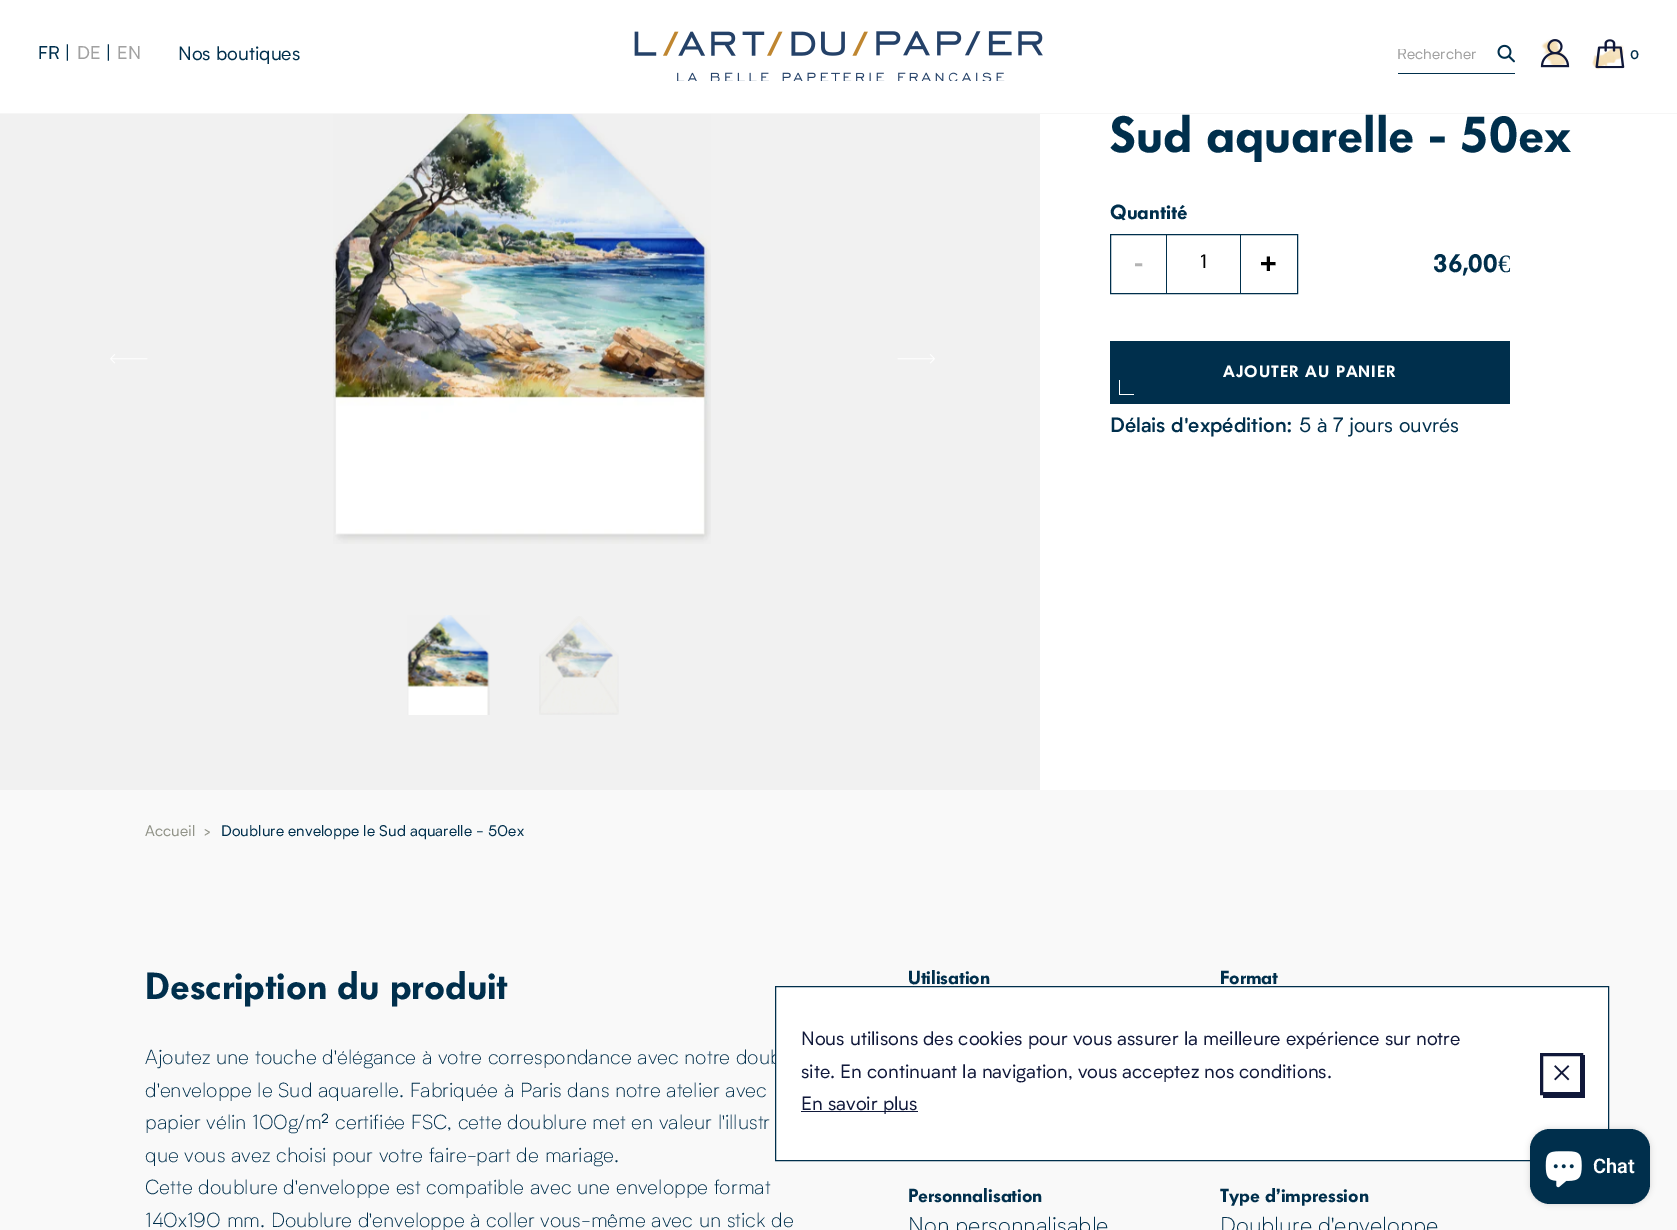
%!PS
<< /PageSize [1677 1230] /PageUsesTransparency true >> setpagedevice
/mt/moveto load def
/li/lineto load def
/cp/closepath load def
/fl/fill load def
/st/stroke load def
/gs/gsave load def
/gr/grestore load def
/lw/setlinewidth load def
/co { dup -16 bitshift 255 div exch dup -8 bitshift 255 and 255 div exch 255 and 255 div setrgbcolor } def
/fn { [ exch dup neg 0 0 3 -1 roll 0 0 ] selectfont } def
/tx { co fn moveto show } def
/bx { co rectfill } def
/al { dup .setfillconstantalpha .setstrokeconstantalpha } def
/rr { 5 dict begin { /r /h /w /y /x } { exch def } forall
  x r add y moveto x w add y 2 copy h add r arct x w add y h add x 1 index r arct
  x y h add x y r arct x y 2 copy exch w add exch r arct closepath end } def
/sh { 12 dict begin { /a /b /q /h /w /y /x } { exch def } forall gsave /was 0 def
  9 -2 -9 { dup b mul 4 div /e exch def 1 sub .425 mul 2.718 exch exp 1 add a .99 .min exch div /now exch def
    1 1 now sub 1 was sub div sub al /was now def
    w h .min e 2 mul add 0 gt { x e sub y e sub w e 2 mul add h e 2 mul add
      q e add b .6 mul add w h .min 2 div e add .min 0 .max rr fill } if } for grestore end } def
/im { 5 dict begin { /h /w /y /x /name } { exch def } forall
  gsave x y translate w h scale
  w h 8 [w 0 0 h 0 0] name (r) file false 3 colorimage grestore end } def
0 .pushpdf14devicefilter
0 1230 translate 1 -1 scale
4 setmiterlimit
0 0 1677 1230 16#F1F1F1 bx
0 0 1677 113 16#FFFFFF bx
0 113 1677 1 16#F6F6F6 bx
(media/1.raw) 634 31 409 50 im
1398 73 117 1 16#002F4C bx
(media/2.raw) 1497 44 18 19 im
(media/4.raw) 1541 39 26 26 im
(media/3.raw) 1540 39 30 29 im
(media/6.raw) 1592 45 32 25 im
(media/5.raw) 1595 39 30 30 im
(media/7.raw) 110 354 38 10 im
(media/8.raw) 333 114 378 430 im
(media/9.raw) 897 354 38 10 im
(media/10.raw) 407 615 83 100 im
(media/11.raw) 539 616 80 99 im
1040 114 637 676 16#FFFFFF bx
16#002F4C co
1110.5 234.5 187 59 rectstroke
1240 235 1 58 16#002F4C bx
1166 235 1 58 16#002F4C bx
1110 341 400 63 16#002F4C bx
1119 394 15 1 16#FFFFFF bx
1119 380 1 15 16#FFFFFF bx
0 790 1677 440 16#F9F9F9 bx
(FR) 38 59 /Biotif-Regular 18 16#002F4C tx
(|) 66 59 /Biotif-Regular 18.75 16#002F4C tx
(DE) 77 59 /Biotif-Regular 18 16#A1A1A1 tx
(|) 107 59 /Biotif-Regular 18.75 16#002F4C tx
(EN) 117 59 /Biotif-Regular 18 16#A1A1A1 tx
(Nos boutiques) 178 60 /Biotif-Regular 18.75 16#002F4C tx
gs
1398 49 100 15 rectclip
(Rechercher) 1397 59 /Biotif-Regular 15 16#A1A1A1 tx
gr
(0) 1630 59 /Biotif-Bold 12 16#002F4C tx
(Sud aquarelle - 50ex) 1110 152 /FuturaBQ-SemiBold 50 16#002F4C tx
(Quantité) 1110 219 /FuturaBQ-SemiBold 20 16#002F4C tx
(-) 1134 271 /FuturaBQ-SemiBold 25 16#B3B3B3 tx
(1) 1200 268 /Biotif-Regular 18.75 16#000000 tx
(+) 1260 271 /FuturaBQ-SemiBold 25 16#000000 tx
(36,00) 1433 272 /FuturaBQ-SemiBold 25 16#002F4C tx
(€) 1498 272 /LiberationSerif-Regular 25 16#002F4C tx
/FuturaBQ-SemiBold 16.25 fn
16#FFFFFF co
1223 377 mt 1.1 0 (AJOUTER AU PANIER) ashow
(Délais d'expédition:) 1110 432 /Biotif-SemiBold 20 16#002F4C tx
(5 à 7 jours ouvrés) 1299 432 /Biotif-Regular 20 16#002F4C tx
(Accueil) 145 836 /Biotif-Regular 15 16#919388 tx
(>) 204 836 /Biotif-Regular 15 16#919388 tx
(Doublure enveloppe le Sud aquarelle - 50ex) 221 836 /Biotif-Regular 15 16#002F4C tx
(Description du produit) 145 999 /FuturaBQ-SemiBold 37.5 16#002F4C tx
(Ajoutez une touche d'élégance à votre correspondance avec notre doub) 145 1064 /Biotif-Light 20 16#002F4C tx
(d'enveloppe le Sud aquarelle. Fabriquée à Paris dans notre atelier avec) 145 1097 /Biotif-Light 20 16#002F4C tx
(papier vélin 100g/m² certifiée FSC, cette doublure met en valeur l'illustr) 145 1129 /Biotif-Light 20 16#002F4C tx
(que vous avez choisi pour votre faire-part de mariage.) 145 1162 /Biotif-Light 20 16#002F4C tx
(Cette doublure d'enveloppe est compatible avec une enveloppe format) 145 1194 /Biotif-Light 20 16#002F4C tx
(140x190 mm. Doublure d'enveloppe à coller vous-même avec un stick de) 145 1227 /Biotif-Light 20 16#002F4C tx
(Utilisation) 908 984 /FuturaBQ-SemiBold 18.75 16#002F4C tx
(Format) 1220 984 /FuturaBQ-SemiBold 18.75 16#002F4C tx
(Personnalisation) 908 1202 /FuturaBQ-SemiBold 18.75 16#002F4C tx
(Non personnalisable) 908 1233 /Biotif-Light 22.5 16#002F4C tx
(Type d’impression) 1220 1202 /FuturaBQ-SemiBold 18.75 16#002F4C tx
(Doublure d'enveloppe) 1220 1233 /Biotif-Light 22.5 16#002F4C tx
16#FFFFFF co
775.5 986.5 mt 1608.5 986.5 li 1608.5 1160.5 li 775.5 1160.5 li cp gs fl gr
16#002F4C co
st
(Nous utilisons des cookies pour vous assurer la meilleure expérience sur notre) 801 1045 /Biotif-Regular 18.75 16#10183A tx
(site. En continuant la navigation, vous acceptez nos conditions.) 801 1078 /Biotif-Regular 18.75 16#10183A tx
801 1111 117 1 16#10183A bx
(En savoir plus) 801 1110 /Biotif-Regular 18.75 16#10183A tx
1543 1095 mt 1543 1098 li 1585 1098 li 1585 1055 li 1582 1055 li 1582 1095 li cp fl
3 lw
1541.5 1054.5 40 39 rectstroke
(media/12.raw) 1554 1065 16 16 im
16#000000 co
1530 1129 120 75 20 3 .15 sh
16#002F4C co
1530 1129 120 75 20 rr fl
(media/13.raw) 1545 1151 37 37 im
(Chat) 1593 1173 /Roboto-SemiBold 20 16#FFFFFF tx
.poppdf14devicefilter showpage
